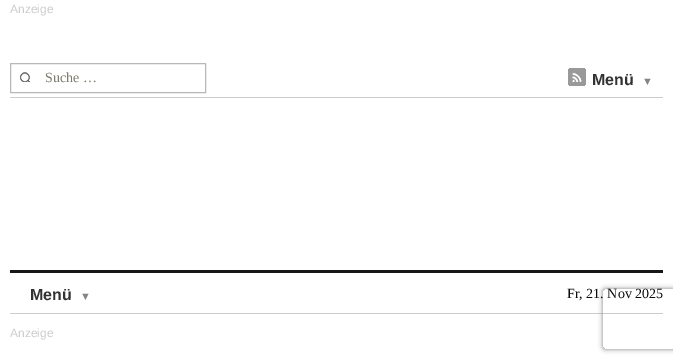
%!PS
<< /PageSize [673 363] /PageUsesTransparency true >> setpagedevice
/mt/moveto load def
/li/lineto load def
/ct/curveto load def
/cp/closepath load def
/gs/gsave load def
/gr/grestore load def
/co { dup -16 bitshift 255 div exch dup -8 bitshift 255 and 255 div exch 255 and 255 div setrgbcolor } def
/fn { [ exch dup neg 0 0 3 -1 roll 0 0 ] selectfont } def
/tx { co fn moveto show } def
/bx { co rectfill } def
/al { dup .setfillconstantalpha .setstrokeconstantalpha } def
/rr { 5 dict begin { /r /h /w /y /x } { exch def } forall
  x r add y moveto x w add y 2 copy h add r arct x w add y h add x 1 index r arct
  x y h add x y r arct x y 2 copy exch w add exch r arct closepath end } def
/sh { 12 dict begin { /a /b /q /h /w /y /x } { exch def } forall gsave /was 0 def
  9 -2 -9 { dup b mul 4 div /e exch def 1 sub .425 mul 2.718 exch exp 1 add a .99 .min exch div /now exch def
    1 1 now sub 1 was sub div sub al /was now def
    w h .min e 2 mul add 0 gt { x e sub y e sub w e 2 mul add h e 2 mul add
      q e add b .6 mul add w h .min 2 div e add .min 0 .max rr fill } if } for grestore end } def
/im { 5 dict begin { /h /w /y /x /name } { exch def } forall
  gsave x y translate w h scale
  w h 8 [w 0 0 h 0 0] name (r) file false 3 colorimage grestore end } def
0 .pushpdf14devicefilter
0 363 translate 1 -1 scale
4 setmiterlimit
0 0 673 363 16#FFFFFF bx
10 97 653 1 16#CCCCCC bx
16#B9B8B8 co
10.5 63.5 195 29 rectstroke
(media/1.raw) 20 72 11 10 im
(media/2.raw) 568 68 18 18 im
10 270 653 3 16#171717 bx
10 313 653 1 16#CCCCCC bx
gs
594 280 mt 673 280 li 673 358 li 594 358 li cp 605 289 mt 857 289 li 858 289 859 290 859 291 ct 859 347 li 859 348 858 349 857 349 ct 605 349 li 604 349 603 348 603 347 ct 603 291 li 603 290 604 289 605 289 ct cp eoclip newpath
16#808080 co
603 289 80 60 2 2.5 1 sh
gr
(Anzeige) 10 13 /LiberationSans-Regular 12 16#CCCCCC tx
(Suche …) 45 82 /LiberationSerif-Regular 14 16#7D7B6D tx
(Menü) 592 85 /LiberationSans-Bold 16 16#323232 tx
(▼) 642 85 /LiberationSerif-Regular 11 16#848484 tx
(Menü) 30 300 /LiberationSans-Bold 16 16#323232 tx
(▼) 80 300 /LiberationSerif-Regular 11 16#848484 tx
(Fr, 21. Nov 2025) 567 298 /LiberationSerif-Regular 14 16#0C0C0C tx
(Anzeige) 10 337 /LiberationSans-Regular 12 16#CCCCCC tx
.poppdf14devicefilter showpage
